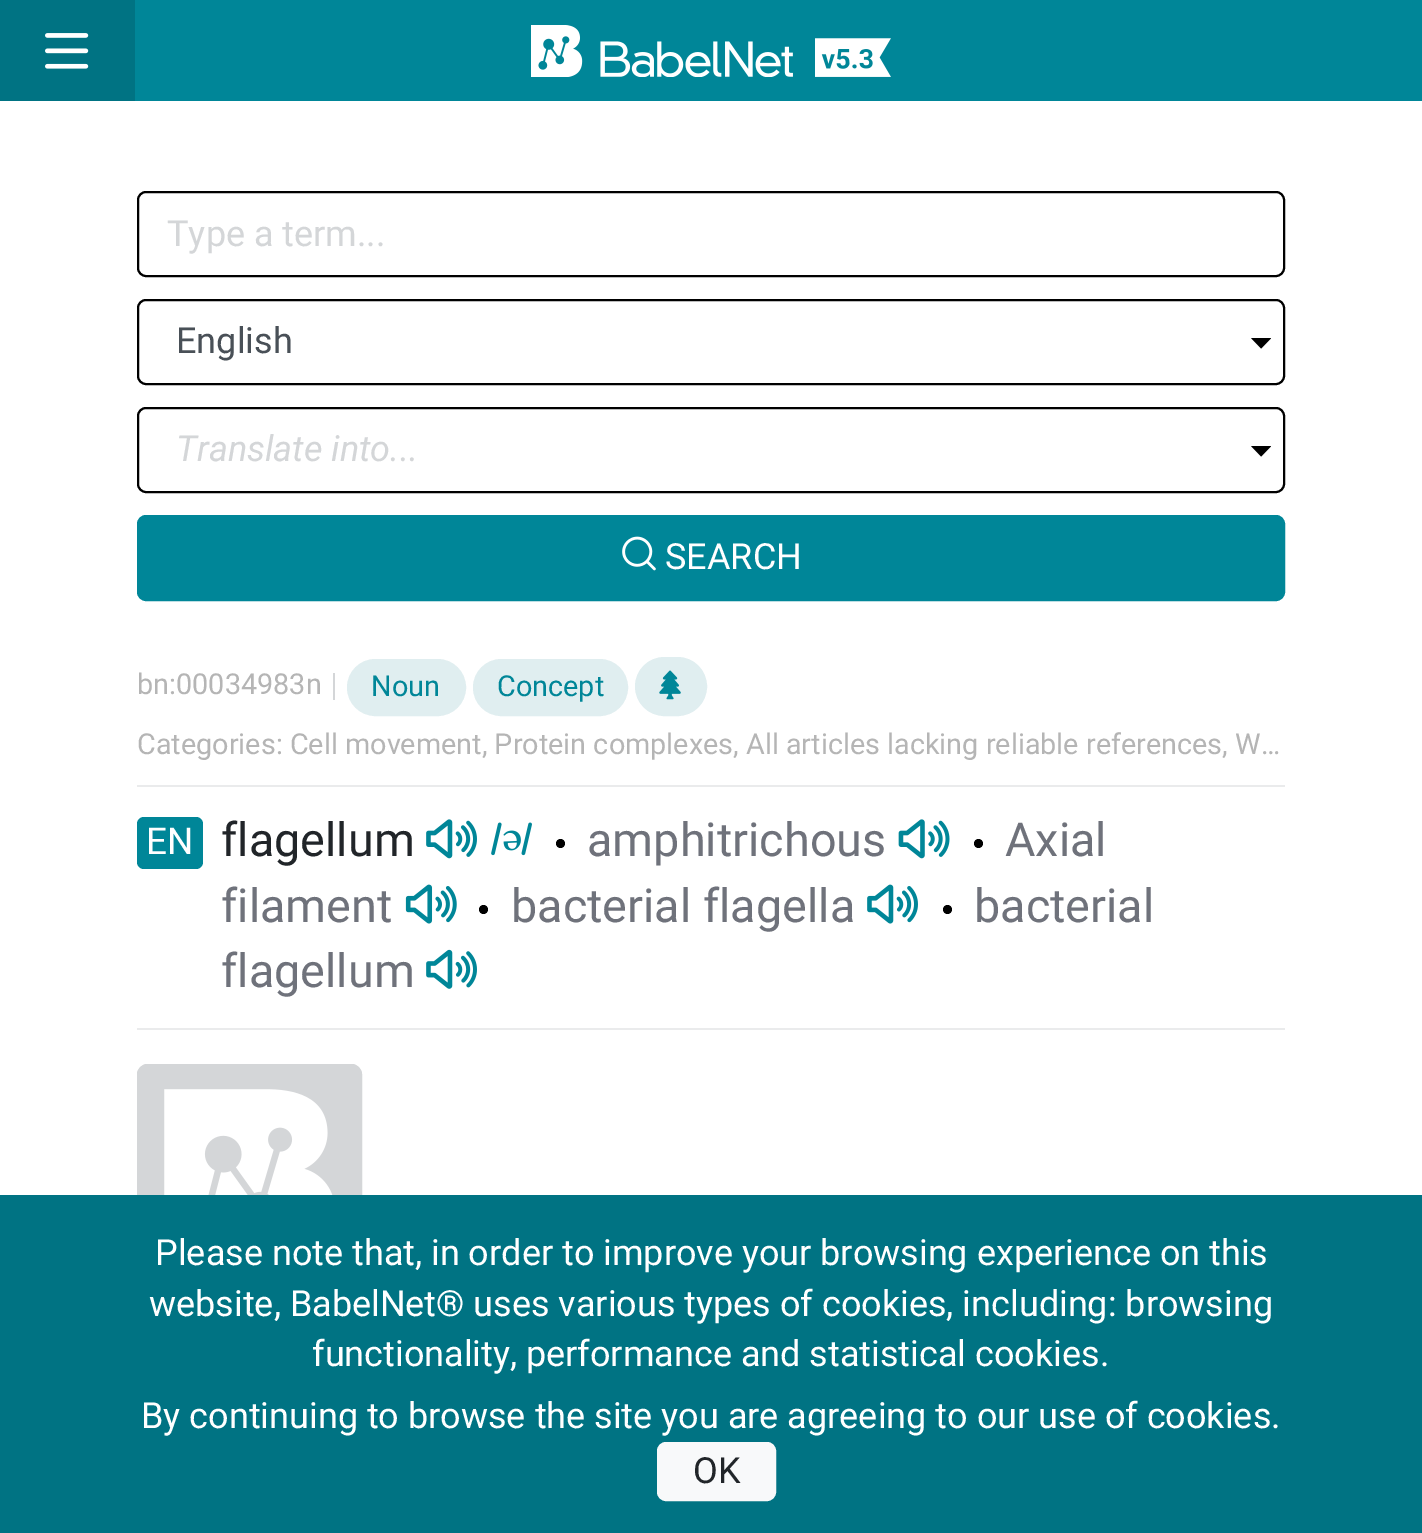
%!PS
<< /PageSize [1422 1533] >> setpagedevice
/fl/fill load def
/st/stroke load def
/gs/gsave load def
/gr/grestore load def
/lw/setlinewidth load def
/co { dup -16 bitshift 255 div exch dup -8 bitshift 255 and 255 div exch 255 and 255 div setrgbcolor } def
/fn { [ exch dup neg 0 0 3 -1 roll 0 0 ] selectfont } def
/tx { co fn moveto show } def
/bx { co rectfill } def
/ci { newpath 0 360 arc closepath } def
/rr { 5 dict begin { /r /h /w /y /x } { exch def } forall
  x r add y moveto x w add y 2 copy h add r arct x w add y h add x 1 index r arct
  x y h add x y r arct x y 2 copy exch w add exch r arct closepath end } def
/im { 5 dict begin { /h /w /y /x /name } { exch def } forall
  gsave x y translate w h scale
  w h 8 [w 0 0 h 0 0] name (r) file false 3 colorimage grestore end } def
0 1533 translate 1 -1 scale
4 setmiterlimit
0 0 1422 1533 16#FFFFFF bx
135 0 1287 101 16#008698 bx
0 0 135 101 16#007383 bx
(media/1.raw) 45 33 44 36 im
(media/2.raw) 531 25 262 52 im
(media/3.raw) 815 38 76 39 im
16#000000 co
2 lw
138 192 1146 84 8 rr st
138 300 1146 84 8 rr st
(media/4.raw) 1251 338 20 11 im
138 408 1146 84 8 rr st
(media/4.raw) 1251 446 20 11 im
16#008698 co
138 516 1146 84 8 rr gs fl gr
st
(media/5.raw) 622 536 34 35 im
137 785 1148 2 16#EAEBEC bx
333 673 2 27 16#D4D6D8 bx
16#E0EEF0 co
348 660 117 55 27.5 rr gs fl gr
st
474 660 153 55 27.5 rr gs fl gr
st
636 658 70 57 28.5 rr gs fl gr
st
(media/6.raw) 659 670 22 30 im
137 1028 1148 2 16#EAEBEC bx
16#008698 co
137 817 66 52 7 rr fl
(media/7.raw) 426 819 51 40 im
(media/8.raw) 491 822 41 34 im
16#000000 co
560.5 843.5 4.5 ci fl
(media/9.raw) 898 819 52 40 im
978.5 843.5 4.5 ci fl
(media/10.raw) 405 884 52 40 im
483.5 909.5 4.5 ci fl
(media/11.raw) 867 884 51 40 im
947.5 909.5 4.5 ci fl
(media/12.raw) 426 949 51 40 im
16#D4D6D8 co
137 1064 225 225 11 rr fl
(media/13.raw) 164 1089 169 106 im
138 1065 223 223 10 rr st
0 1195 1422 338 16#007383 bx
16#F8F9FA co
658 1443 117 57 8 rr gs fl gr
st
(Type a term...) 167 246 /Roboto-Regular 36 16#D4D6D8 tx
(English) 176 353 /Roboto-Regular 36 16#495057 tx
(Translate into...) 176 461 /Roboto-Italic 36 16#D4D6D8 tx
(SEARCH) 665 569 /Roboto-Regular 36 16#FFFFFF tx
(bn:00034983n) 137 694 /Roboto-Regular 28.8 16#B5B5B5 tx
(Noun) 371 696 /Roboto-Regular 28.8 16#008698 tx
(Concept) 497 696 /Roboto-Regular 28.8 16#008698 tx
(Categories: Cell movement, Protein complexes, All articles lacking reliable references, W…) 137 754 /Roboto-Regular 28.8 16#B5B5B5 tx
(EN) 146 854 /Roboto-Regular 37 16#FFFFFF tx
(flagellum) 221 856 /Roboto-Regular 46.75 16#212529 tx
(amphitrichous) 587 856 /Roboto-Regular 46.75 16#6F727B tx
(Axial) 1005 856 /Roboto-Regular 46.75 16#6F727B tx
(filament) 221 922 /Roboto-Regular 46.75 16#6F727B tx
(bacterial flagella) 511 922 /Roboto-Regular 46.75 16#6F727B tx
(bacterial) 974 922 /Roboto-Regular 46.75 16#6F727B tx
(flagellum) 221 987 /Roboto-Regular 46.75 16#6F727B tx
(Please note that, in order to improve your browsing experience on this) 155 1265 /Roboto-Regular 36 16#FFFFFF tx
(website, BabelNet® uses various types of cookies, including: browsing) 149 1316 /Roboto-Regular 36 16#FFFFFF tx
(functionality, performance and statistical cookies.) 312 1366 /Roboto-Regular 36 16#FFFFFF tx
(By continuing to browse the site you are agreeing to our use of cookies.) 141 1428 /Roboto-Regular 36 16#FFFFFF tx
(OK) 693 1483 /Roboto-Regular 36 16#212529 tx
showpage
